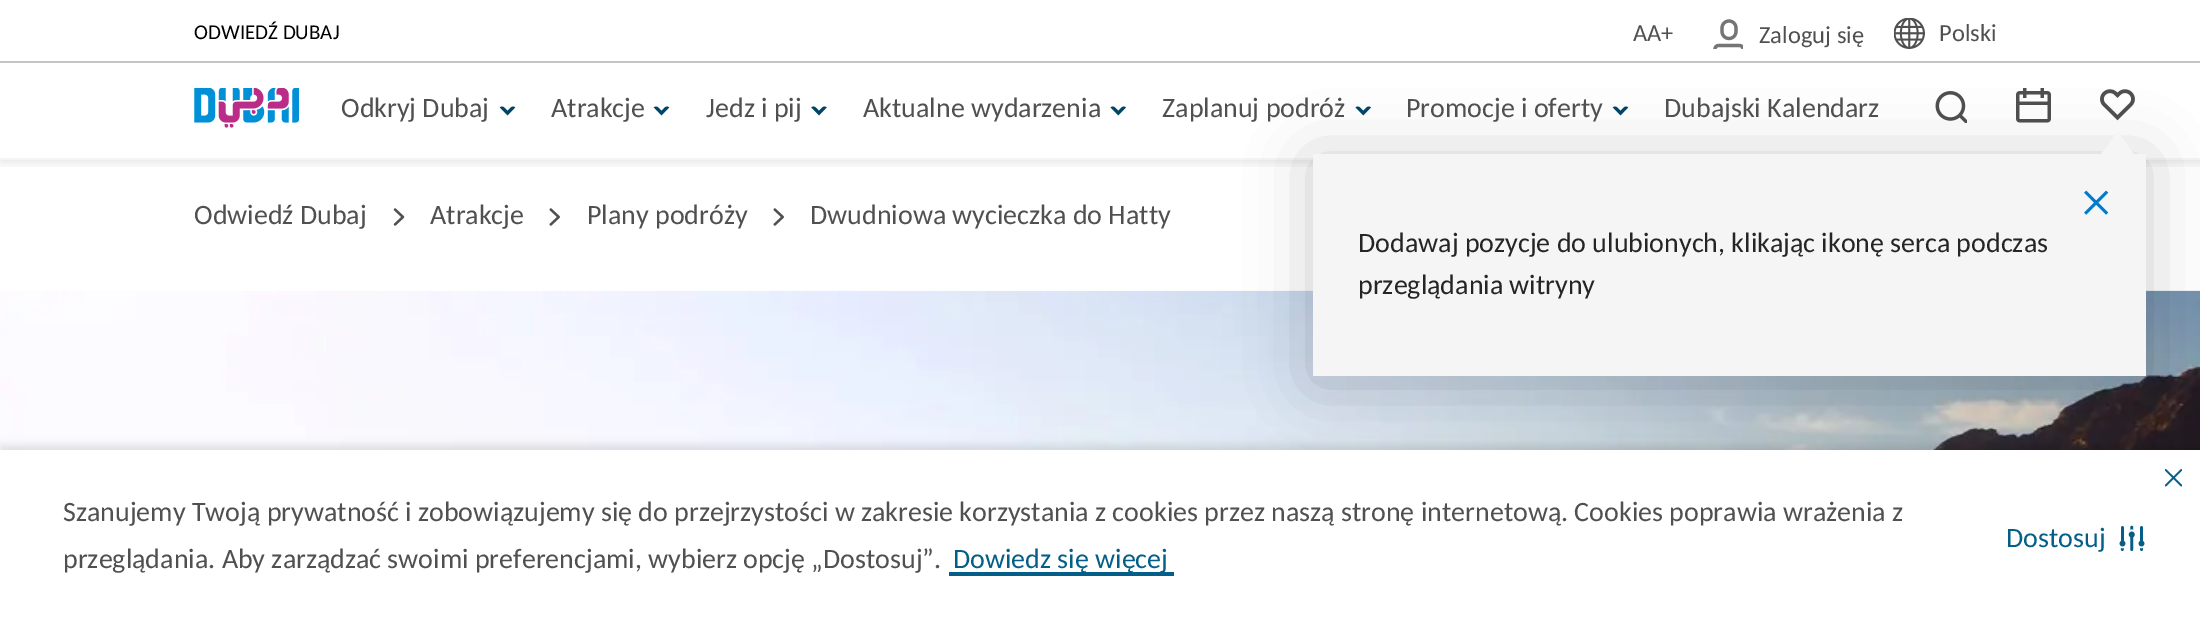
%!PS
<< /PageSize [2200 627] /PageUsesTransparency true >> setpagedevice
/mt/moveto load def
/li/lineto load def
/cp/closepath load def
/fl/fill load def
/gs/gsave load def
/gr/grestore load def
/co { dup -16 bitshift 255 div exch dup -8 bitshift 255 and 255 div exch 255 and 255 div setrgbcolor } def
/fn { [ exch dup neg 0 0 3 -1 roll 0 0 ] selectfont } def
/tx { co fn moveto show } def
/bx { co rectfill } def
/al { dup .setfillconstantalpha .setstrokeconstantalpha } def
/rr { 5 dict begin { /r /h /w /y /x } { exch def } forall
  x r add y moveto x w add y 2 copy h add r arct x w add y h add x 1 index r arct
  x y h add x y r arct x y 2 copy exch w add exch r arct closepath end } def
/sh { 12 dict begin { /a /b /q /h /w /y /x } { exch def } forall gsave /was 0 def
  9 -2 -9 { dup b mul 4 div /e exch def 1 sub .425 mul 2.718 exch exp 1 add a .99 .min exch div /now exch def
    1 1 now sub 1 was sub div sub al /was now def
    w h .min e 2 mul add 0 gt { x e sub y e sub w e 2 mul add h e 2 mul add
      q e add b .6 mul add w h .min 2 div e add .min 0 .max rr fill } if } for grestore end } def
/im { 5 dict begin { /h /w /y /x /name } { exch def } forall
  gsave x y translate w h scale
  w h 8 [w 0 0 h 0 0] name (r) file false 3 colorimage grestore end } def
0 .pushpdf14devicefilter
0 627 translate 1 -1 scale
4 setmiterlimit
0 0 2200 627 16#FFFFFF bx
gs
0 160 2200 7 rectclip
16#000000 co
0 67 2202 96 0 5 .1 sh
gr
0 61 2200 2 16#C5C5C5 bx
(media/1.raw) 1713 19 30 30 im
(media/2.raw) 1894 18 31 31 im
0 158 2200 2 16#F5F5F5 bx
(media/3.raw) 194 88 105 40 im
(media/4.raw) 499 106 17 10 im
(media/4.raw) 653 106 17 10 im
(media/5.raw) 811 106 16 10 im
(media/6.raw) 1110 106 16 10 im
(media/9.raw) 1935 91 32 32 im
(media/10.raw) 2016 88 35 35 im
(media/11.raw) 2100 89 35 32 im
(media/15.raw) 0 290 2200 160 im
16#000000 co
1313 159 833 223 0 31.5 .21 sh
(media/7.raw) 1355 106 16 10 im
(media/8.raw) 1612 106 17 10 im
1313 154 833 222 16#F5F5F5 bx
2135 156 mt 2100 156 li 2117.5 131 li cp fl
(media/12.raw) 2084 190 25 25 im
(media/13.raw) 393 208 12 18 im
(media/14.raw) 549 208 11 18 im
(media/14.raw) 773 208 11 18 im
16#000000 co
0 445 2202 178 0 4.5 .11 sh
0 450 2200 177 16#FFFFFF bx
gs 949 572 mt 1174 572 li 1174 576 li 949 576 li cp clip newpath
<< /ShadingType 2 /ColorSpace /DeviceRGB /Coords [1061 586 1061 534] /Extend [true true] /Function << /FunctionType 3 /Domain [0 1] /Functions [<< /FunctionType 2 /Domain [0 1] /C0 [1 1 1] /C1 [1 1 1] /N 1 >> << /FunctionType 2 /Domain [0 1] /C0 [.012 .369 .533] /C1 [.012 .369 .533] /N 1 >> << /FunctionType 2 /Domain [0 1] /C0 [1 1 1] /C1 [1 1 1] /N 1 >>] /Bounds [.2 .27] /Encode [0 1 0 1 0 1] >> >> shfill gr
(media/16.raw) 2165 469 17 18 im
(media/17.raw) 2119 525 26 26 im
(ODWIEDŹ DUBAJ) 194 39 /Carlito-Regular 21 16#000000 tx
(AA+) 1633 41 /Carlito-Regular 24.5 16#505050 tx
(Zaloguj się) 1759 43 /Carlito-Regular 24.5 16#505050 tx
(Polski) 1939 41 /Carlito-Regular 24.5 16#505050 tx
(Odkryj Dubaj) 341 117 /Carlito-Regular 28 16#505050 tx
(Atrakcje) 551 117 /Carlito-Regular 28 16#505050 tx
(Jedz i pij) 706 117 /Carlito-Regular 28 16#505050 tx
(Aktualne wydarzenia) 863 117 /Carlito-Regular 28 16#505050 tx
(Zaplanuj podróż) 1162 117 /Carlito-Regular 28 16#505050 tx
(Promocje i oferty) 1406 117 /Carlito-Regular 28 16#505050 tx
(Dubajski Kalendarz) 1664 117 /Carlito-Regular 28 16#505050 tx
(Dodawaj pozycje do ulubionych, klikając ikonę serca podczas) 1358 252 /Carlito-Regular 28 16#252525 tx
(przeglądania witryny) 1358 294 /Carlito-Regular 28 16#252525 tx
(Odwiedź Dubaj) 194 224 /Carlito-Regular 28 16#505050 tx
(Atrakcje) 430 224 /Carlito-Regular 28 16#505050 tx
(Plany podróży) 587 224 /Carlito-Regular 28 16#505050 tx
(Dwudniowa wycieczka do Hatty) 810 224 /Carlito-Regular 28 16#505050 tx
(Szanujemy Twoją prywatność i zobowiązujemy się do przejrzystości w zakresie korzystania z cookies przez naszą stronę internetową. Cookies poprawia wrażenia z) 63 521 /Carlito-Regular 28 16#505050 tx
(przeglądania. Aby zarządzać swoimi preferencjami, wybierz opcję „Dostosuj”.) 63 568 /Carlito-Regular 28 16#505050 tx
(Dowiedz się więcej) 953 568 /Carlito-Regular 28 16#035E88 tx
(Dostosuj) 2006 547 /Carlito-Regular 28 16#035E88 tx
.poppdf14devicefilter showpage
